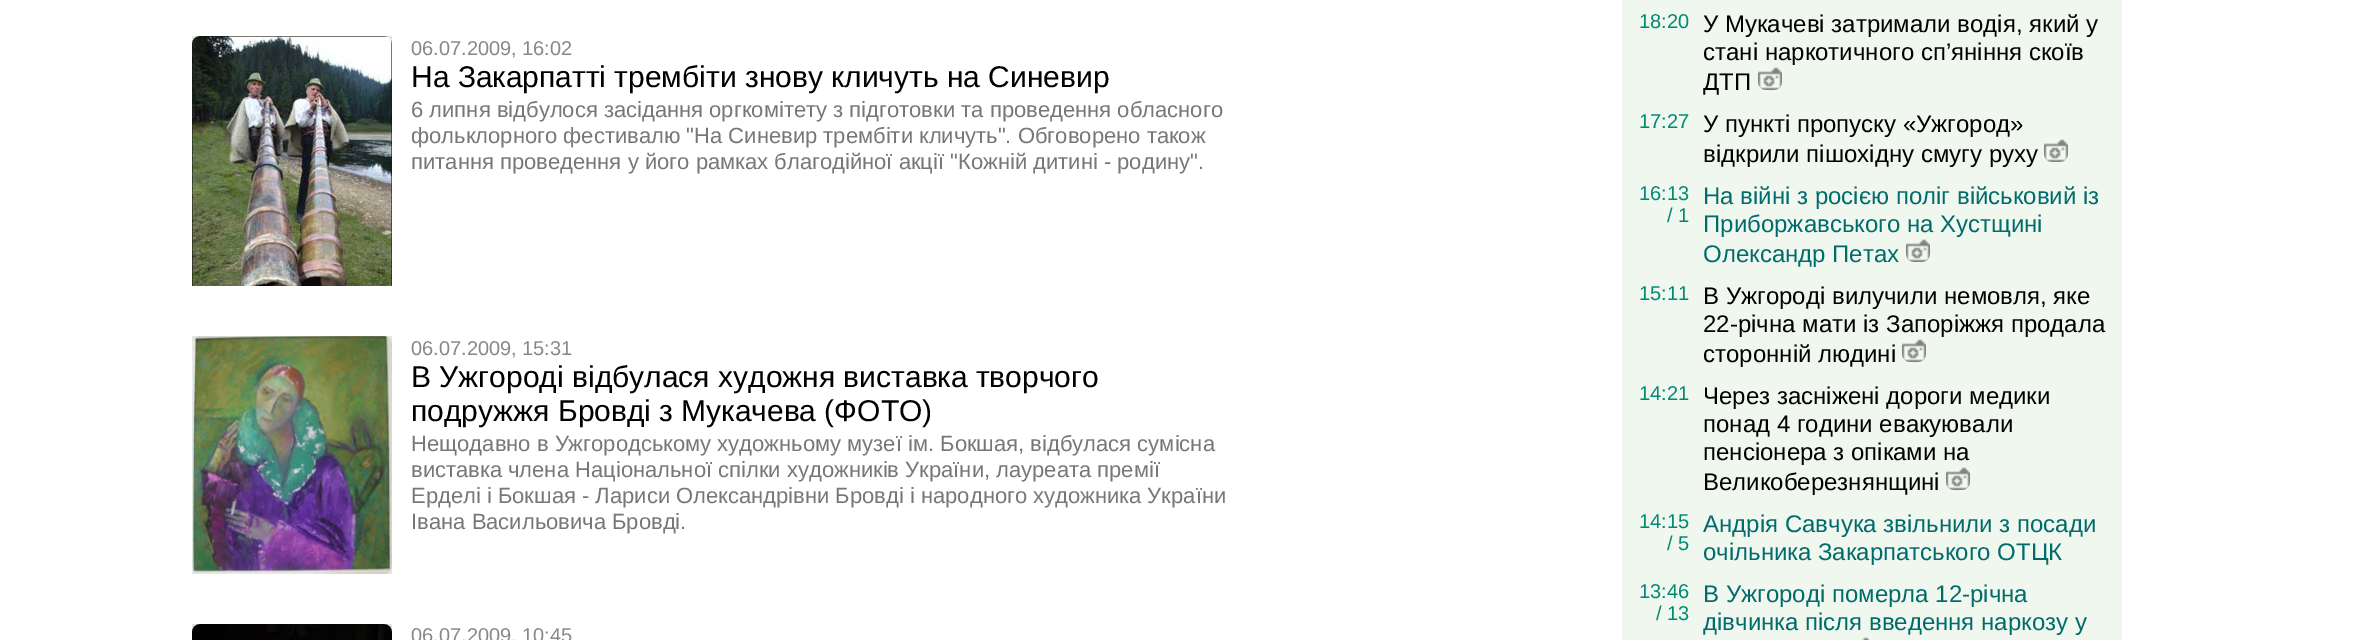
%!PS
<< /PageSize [2371 640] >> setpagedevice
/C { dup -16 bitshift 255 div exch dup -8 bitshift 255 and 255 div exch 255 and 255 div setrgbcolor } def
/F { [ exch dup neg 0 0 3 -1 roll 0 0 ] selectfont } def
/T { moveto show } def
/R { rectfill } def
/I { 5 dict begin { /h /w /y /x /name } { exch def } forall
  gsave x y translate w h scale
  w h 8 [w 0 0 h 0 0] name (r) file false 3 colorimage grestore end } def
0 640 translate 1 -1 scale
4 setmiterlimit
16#FFFFFF C
0 0 2371 640 R
16#E5E5E5 C
192 36 200 8 R
(1.rgb) 192 36 200 250 I
/LiberationSans-Regular 20 F
16#888888 C
(06.07.2009, 16:02) 411 55 T
/LiberationSans-Regular 30 F
16#000000 C
(На Закарпатті трембіти знову кличуть на Синевир) 411 87 T
/LiberationSans-Regular 22 F
16#777777 C
(6 липня відбулося засідання оргкомітету з підготовки та проведення обласного) 411 117 T
(фольклорного фестивалю "На Синевир трембіти кличуть". Обговорено також) 411 143 T
(питання проведення у його рамках благодійної акції "Кожній дитині - родину".) 411 169 T
16#E5E5E5 C
192 336 200 238 R
(2.rgb) 192 336 200 238 I
/LiberationSans-Regular 20 F
16#888888 C
(06.07.2009, 15:31) 411 355 T
/LiberationSans-Regular 30 F
16#000000 C
(В Ужгороді відбулася художня виставка творчого) 411 387 T
(подружжя Бровді з Мукачева \(ФОТО\)) 411 421 T
/LiberationSans-Regular 22 F
16#777777 C
(Нещодавно в Ужгородському художньому музеї ім. Бокшая, відбулася сумісна) 411 451 T
(виставка члена Національної спілки художників України, лауреата премії) 411 477 T
(Ерделі і Бокшая - Лариси Олександрівни Бровді і народного художника України) 411 503 T
(Івана Васильовича Бровді.) 411 529 T
16#E5E5E5 C
192 624 200 8 R
(3.rgb) 192 624 200 16 I
/LiberationSans-Regular 20 F
16#888888 C
(06.07.2009, 10:45) 411 642 T
16#F0F7EE C
1622 0 500 640 R
16#008973 C
(18:20) 1639 28 T
/LiberationSans-Regular 24 F
16#000000 C
(У Мукачеві затримали водія, який у) 1703 32 T
(стані наркотичного сп’яніння скоїв) 1703 60 T
(ДТП) 1703 90 T
(4.rgb) 1758 67 24 23 I
/LiberationSans-Regular 20 F
16#008973 C
(17:27) 1639 128 T
/LiberationSans-Regular 24 F
16#000000 C
(У пункті пропуску «Ужгород») 1703 132 T
(відкрили пішохідну смугу руху) 1703 162 T
(5.rgb) 2044 139 24 23 I
/LiberationSans-Regular 20 F
16#008973 C
(16:13) 1639 200 T
(/ 1) 1667 222 T
/LiberationSans-Regular 24 F
16#006B6B C
(На війні з росією поліг військовий із) 1703 204 T
(Приборжавського на Хустщині) 1703 232 T
(Олександр Петах) 1703 262 T
(5.rgb) 1906 239 24 23 I
/LiberationSans-Regular 20 F
16#008973 C
(15:11) 1639 300 T
/LiberationSans-Regular 24 F
16#000000 C
(В Ужгороді вилучили немовля, яке) 1703 304 T
(22-річна мати із Запоріжжя продала) 1703 332 T
(сторонній людині) 1703 362 T
(5.rgb) 1902 339 24 23 I
/LiberationSans-Regular 20 F
16#008973 C
(14:21) 1639 400 T
/LiberationSans-Regular 24 F
16#000000 C
(Через засніжені дороги медики) 1703 404 T
(понад 4 години евакуювали) 1703 432 T
(пенсіонера з опіками на) 1703 460 T
(Великоберезнянщині) 1703 490 T
(5.rgb) 1946 467 24 23 I
/LiberationSans-Regular 20 F
16#008973 C
(14:15) 1639 528 T
(/ 5) 1667 550 T
/LiberationSans-Regular 24 F
16#006B6B C
(Андрія Савчука звільнили з посади) 1703 532 T
(очільника Закарпатського ОТЦК) 1703 560 T
/LiberationSans-Regular 20 F
16#008973 C
(13:46) 1639 598 T
(/ 13) 1656 620 T
/LiberationSans-Regular 24 F
16#006B6B C
(В Ужгороді померла 12-річна) 1703 602 T
(дівчинка після введення наркозу у) 1703 630 T
(6.rgb) 1861 637 9 3 I
showpage
